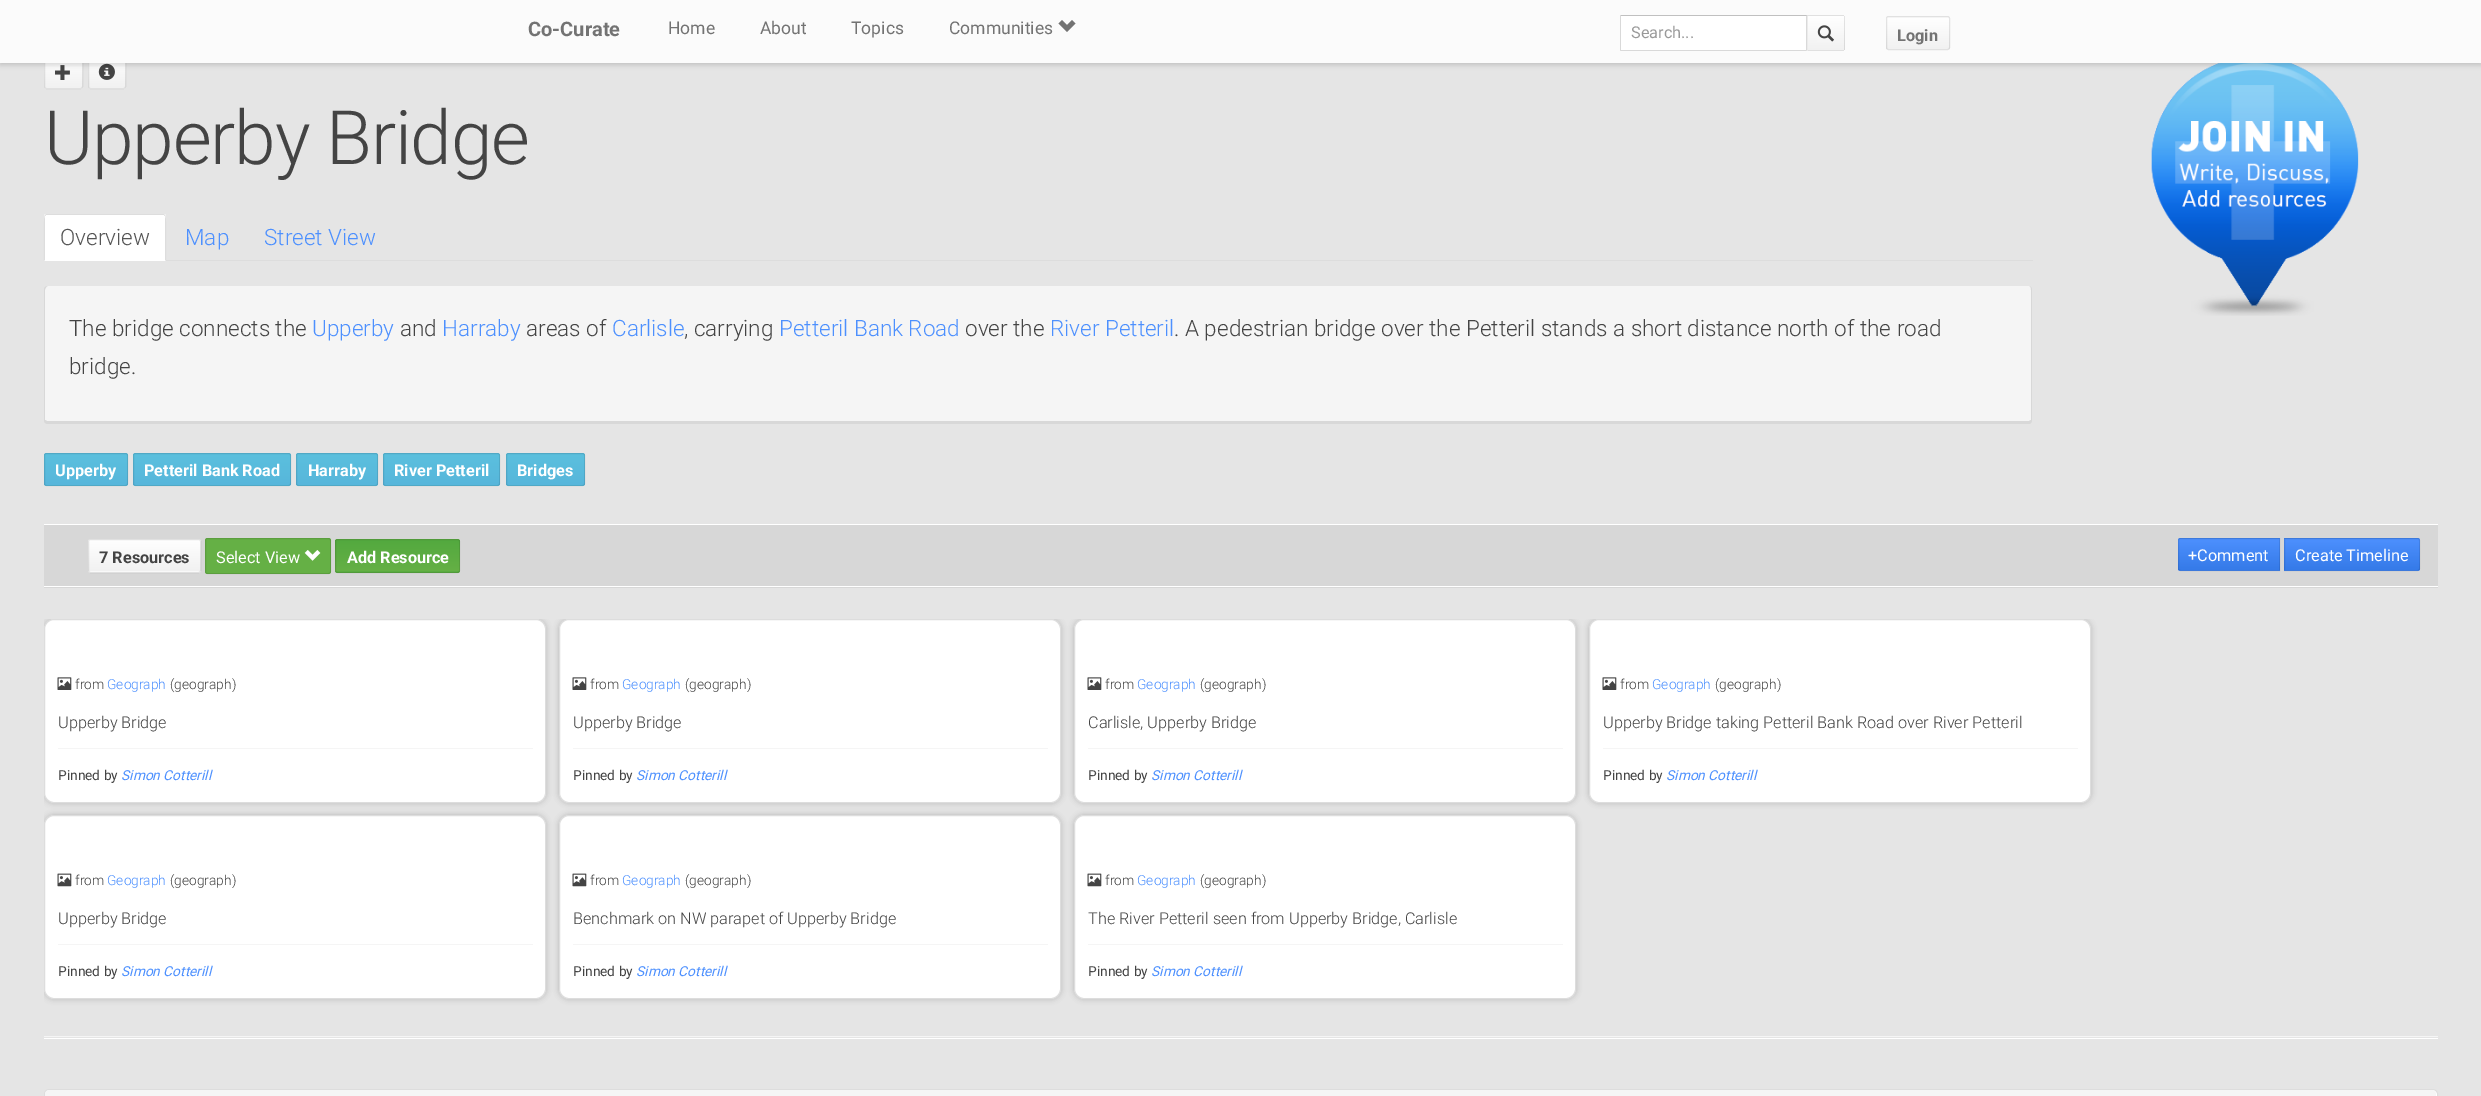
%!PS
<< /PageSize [2481 1096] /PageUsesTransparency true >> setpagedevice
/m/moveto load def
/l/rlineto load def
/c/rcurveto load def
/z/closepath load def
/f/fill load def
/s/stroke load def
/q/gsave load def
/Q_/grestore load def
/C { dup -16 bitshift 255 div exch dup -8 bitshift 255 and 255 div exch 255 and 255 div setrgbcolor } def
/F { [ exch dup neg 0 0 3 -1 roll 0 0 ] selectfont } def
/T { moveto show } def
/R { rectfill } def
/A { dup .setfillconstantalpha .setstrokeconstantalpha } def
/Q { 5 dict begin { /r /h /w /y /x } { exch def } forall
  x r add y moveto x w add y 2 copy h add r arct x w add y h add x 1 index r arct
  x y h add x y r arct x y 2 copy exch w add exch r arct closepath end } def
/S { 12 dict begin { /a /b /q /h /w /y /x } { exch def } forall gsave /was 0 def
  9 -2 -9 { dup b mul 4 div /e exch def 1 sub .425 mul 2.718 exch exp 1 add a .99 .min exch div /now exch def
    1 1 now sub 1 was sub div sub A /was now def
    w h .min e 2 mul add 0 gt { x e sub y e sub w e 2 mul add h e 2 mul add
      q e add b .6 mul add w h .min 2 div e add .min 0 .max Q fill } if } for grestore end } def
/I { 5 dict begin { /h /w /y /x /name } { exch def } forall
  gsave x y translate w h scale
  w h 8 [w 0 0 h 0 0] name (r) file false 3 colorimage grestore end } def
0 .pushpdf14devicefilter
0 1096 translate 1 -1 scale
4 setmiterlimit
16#E5E5E5 C
0 0 2481 1096 R
16#F9F9F9 C
44 55 39 34 2.5 Q f
q 44 63 m 39 0 l 0 25 l -39 0 l z clip newpath
<< /ShadingType 2 /ColorSpace /DeviceRGB /Coords [63 56 63 88] /Extend [true true] /Function << /FunctionType 2 /Domain [0 1] /C0 [1 1 1] /C1 [.945 .945 .945] /N 1 >> >> shfill Q_
0.1 A
16#000000 C
44.5 55.5 38 33 2 Q s
1 A
(2.rgb) 55 65 15 15 I
16#F9F9F9 C
88 55 38 34 2.5 Q f
q 88 63 m 38 0 l 0 25 l -38 0 l z clip newpath
<< /ShadingType 2 /ColorSpace /DeviceRGB /Coords [107 56 107 88] /Extend [true true] /Function << /FunctionType 2 /Domain [0 1] /C0 [1 1 1] /C1 [.945 .945 .945] /N 1 >> >> shfill Q_
0.1 A
16#000000 C
88.5 55.5 37 33 2 Q s
1 A
(3.rgb) 98 63 17 17 I
(4.rgb) 2151 63 208 253 I
0 3 2481 62 0 2.5 .15 S
16#FBFBFB C
0 0 2481 63 R
/Roboto-Bold 20 F
16#737373 C
(Co-Curate) 528 36 T
/Roboto-Regular 17.5 F
(Home) 668 34 T
(About) 760 34 T
(Topics) 851 34 T
(Communities) 949 34 T
1058.5 23.5 m 8.5 8.5 l 8.5 -8.5 l -3.5 -3.5 l -5 5 l -5 -5 l z f
16#FFFFFF C
1621 15 m 187 0 l 0 36 l -187 0 l -.5 0 -1 -.5 -1 -1 c 0 -34 l 0 -.5 .5 -1 1 -1 c z f
16#C0C0C0 C
1621 15 m -1 1 l 1 0 l 185 0 l 2 -1 l z f
16#D9D9D9 C
1807.5 15 m 0 36 l -1.5 -1 l 0 -33.5 l z f
1807 51 m -187 0 l 1 -1 l 185 0 l z f
1621 16 m -.5 -.5 l -.5 .5 l 0 34 l .5 1 l .5 -1 l z f
/Roboto-Regular 16.25 F
16#999999 C
(Search...) 1631 38 T
q 1808 16 m 37 0 l 0 34 l -37 0 l z clip newpath
<< /ShadingType 2 /ColorSpace /DeviceRGB /Coords [1826 16 1826 50] /Extend [true true] /Function << /FunctionType 2 /Domain [0 1] /C0 [1 1 1] /C1 [.945 .945 .945] /N 1 >> >> shfill Q_
16#E0E0E0 C
1808 15 36 1 R
0.1 A
16#000000 C
1844 16 1 34 R
1 A
16#E0E0E0 C
1808 50 36 1 R
(1.rgb) 1817 25 17 17 I
q 1886 18 m 64 0 l 0 31 l -64 0 l z clip newpath
<< /ShadingType 2 /ColorSpace /DeviceRGB /Coords [1918 17 1918 49] /Extend [true true] /Function << /FunctionType 2 /Domain [0 1] /C0 [1 1 1] /C1 [.945 .945 .945] /N 1 >> >> shfill Q_
0.1 A
16#000000 C
1886.5 16.5 63 33 2 Q s
/Roboto-Bold 16.25 F
1 A
16#737373 C
(Login) 1897 41 T
/Roboto-Light 75 F
16#444444 C
44 164 m -1.25 0 (Upperby Bridge) ashow
16#DDDDDD C
166 260 1867 1 R
16#FFFFFF C
46.5 214 m 117 0 l 1.5 0 2.5 1 2.5 2.5 c 0 44.5 l -122 0 l 0 -44.5 l 0 -1.5 1 -2.5 2.5 -2.5 c z f
16#DDDDDD C
46 214 m -1 1 l 1 1 l 0 -1 l 118 0 l 0 1 l 1 -1 l -1 -1 l z f
166 261 m 0 -5 1 -45 -1 -46 c -1 1 l 1 0 l 0 44 l z f
45 215 m -2 1 -1 41 -1 46 c 1 -1 l 0 -44 l 1 0 l z f
/Roboto-Light 22.5 F
16#555555 C
(Overview) 60 245 T
16#4D90FE C
(Map) 185 245 T
(Street View) 264 245 T
16#F5F5F5 C
48 286 m 1981 0 l 2 0 2 3 2 4 c 0 130 l -2 1 l -1982 0 l -2 -1 l 0 -130 l 0 -1 1 -4 3 -4 c z f
16#D8D8D8 C
48 286 m 1981 0 l 2 0 3 2 3 4 c 0 130 l 0 2 -1 4 -3 4 c -1981 0 l -3 0 -4 -2 -4 -4 c 0 -130 l 0 -2 1 -4 4 -4 c z 48 286 m 1981 0 l 2 0 2 3 2 4 c 0 130 l -2 1 l -1982 0 l -2 -1 l 0 -130 l 0 -1 1 -4 3 -4 c z eofill
16#444444 C
(The bridge connects the) 69 336 T
16#4D90FE C
(Upperby) 312 336 T
16#444444 C
(and) 400 336 T
16#4D90FE C
(Harraby) 442 336 T
16#444444 C
(areas of) 526 336 T
16#4D90FE C
(Carlisle) 612 336 T
16#444444 C
(, carrying) 684 336 T
16#4D90FE C
(Petteril Bank Road) 779 336 T
16#444444 C
(over the) 965 336 T
16#4D90FE C
(River Petteril) 1050 336 T
16#444444 C
(. A pedestrian bridge over the Petteril stands a short distance north of the road) 1174 336 T
(bridge.) 69 374 T
16#59BCDD C
44 453 84 33 2.5 Q f
q
44 453 84 33 2.5 Q clip newpath
q 44 454 m 84 0 l 0 31 l -84 0 l z clip newpath
<< /ShadingType 2 /ColorSpace /DeviceRGB /Coords [86 454 86 485] /Extend [true true] /Function << /FunctionType 2 /Domain [0 1] /C0 [.357 .753 .871] /C1 [.341 .714 .859] /N 1 >> >> shfill Q_
Q_
0.1 A
16#000000 C
44.5 453.5 83 32 2 Q s
/Roboto-Bold 16.25 F
1 A
16#FFFFFF C
(Upperby) 55 476 T
16#59BCDD C
133 453 158 33 2.5 Q f
q
133 453 158 33 2.5 Q clip newpath
q 133 454 m 158 0 l 0 31 l -158 0 l z clip newpath
<< /ShadingType 2 /ColorSpace /DeviceRGB /Coords [212 454 212 485] /Extend [true true] /Function << /FunctionType 2 /Domain [0 1] /C0 [.357 .753 .871] /C1 [.341 .714 .859] /N 1 >> >> shfill Q_
Q_
0.1 A
16#000000 C
133.5 453.5 157 32 2 Q s
1 A
16#FFFFFF C
(Petteril Bank Road) 144 476 T
16#59BCDD C
296 453 82 33 2.5 Q f
q
296 453 82 33 2.5 Q clip newpath
q 296 454 m 82 0 l 0 31 l -82 0 l z clip newpath
<< /ShadingType 2 /ColorSpace /DeviceRGB /Coords [337 454 337 485] /Extend [true true] /Function << /FunctionType 2 /Domain [0 1] /C0 [.357 .753 .871] /C1 [.341 .714 .859] /N 1 >> >> shfill Q_
Q_
0.1 A
16#000000 C
296.5 453.5 81 32 2 Q s
1 A
16#FFFFFF C
(Harraby) 308 476 T
16#59BCDD C
383 453 117 33 2.5 Q f
q
383 453 117 33 2.5 Q clip newpath
q 383 454 m 117 0 l 0 31 l -117 0 l z clip newpath
<< /ShadingType 2 /ColorSpace /DeviceRGB /Coords [441 454 441 485] /Extend [true true] /Function << /FunctionType 2 /Domain [0 1] /C0 [.357 .753 .871] /C1 [.341 .714 .859] /N 1 >> >> shfill Q_
Q_
0.1 A
16#000000 C
383.5 453.5 116 32 2 Q s
1 A
16#FFFFFF C
(River Petteril) 394 476 T
16#59BCDD C
506 453 79 33 2.5 Q f
q
506 453 79 33 2.5 Q clip newpath
q 506 454 m 79 0 l 0 31 l -79 0 l z clip newpath
<< /ShadingType 2 /ColorSpace /DeviceRGB /Coords [546 454 546 485] /Extend [true true] /Function << /FunctionType 2 /Domain [0 1] /C0 [.357 .753 .871] /C1 [.341 .714 .859] /N 1 >> >> shfill Q_
Q_
0.1 A
16#000000 C
506.5 453.5 78 32 2 Q s
1 A
16#FFFFFF C
(Bridges) 517 476 T
16#D7D7D7 C
44 525 2394 63 R
16#FFFFFF C
44 524 2394 1 R
44 586 2394 1 R
16#F9F9F9 C
88 539 113 34 2.5 Q f
q 88 540 m 113 0 l 0 31 l -113 0 l z clip newpath
<< /ShadingType 2 /ColorSpace /DeviceRGB /Coords [144 540 144 571] /Extend [true true] /Function << /FunctionType 2 /Domain [0 1] /C0 [1 1 1] /C1 [.945 .945 .945] /N 1 >> >> shfill Q_
0.1 A
16#000000 C
88.5 539.5 112 33 2 Q s
1 A
16#444444 C
(7 Resources) 99 563 T
16#65B045 C
205 538 126 36 2.5 Q f
0.1 A
16#000000 C
205.5 538.5 125 35 2 Q s
/Roboto-Regular 16.25 F
1 A
16#FFFFFF C
(Select View) 216 563 T
(5.rgb) 304 550 17 11 I
16#5AAC41 C
335 539 125 34 2.5 Q f
q 335 540 m 125 0 l 0 31 l -125 0 l z clip newpath
<< /ShadingType 2 /ColorSpace /DeviceRGB /Coords [398 540 398 571] /Extend [true true] /Function << /FunctionType 2 /Domain [0 1] /C0 [.325 .663 .247] /C1 [.396 .69 .271] /N 1 >> >> shfill Q_
0.1 A
16#000000 C
335.5 539.5 124 33 2 Q s
/Roboto-Bold 16.25 F
1 A
16#FFFFFF C
(Add Resource) 347 563 T
16#4387F5 C
2180.5 538 m 99.5 0 l 0 33 l -99.5 0 l -1.5 0 -2.5 -1 -2.5 -2.5 c 0 -28 l 0 -1.5 1 -2.5 2.5 -2.5 c z f
q 2178 539 m 102 0 l 0 31 l -102 0 l z clip newpath
<< /ShadingType 2 /ColorSpace /DeviceRGB /Coords [2229 539 2229 570] /Extend [true true] /Function << /FunctionType 2 /Domain [0 1] /C0 [.302 .565 .996] /C1 [.208 .478 .91] /N 1 >> >> shfill Q_
0.1 A
16#000000 C
2180.5 538.5 m 99 0 l 0 32 l -99 0 l -1 0 -2 -1 -2 -2 c 0 -28 l 0 -1 1 -2 2 -2 c z s
/Roboto-Regular 16.25 F
1 A
16#FFFFFF C
(+Comment) 2188 561 T
16#4387F5 C
2284 538 m 133.5 0 l 1.5 0 2.5 1 2.5 2.5 c 0 28 l 0 1.5 -1 2.5 -2.5 2.5 c -133.5 0 l z f
q 2284 539 m 136 0 l 0 31 l -136 0 l z clip newpath
<< /ShadingType 2 /ColorSpace /DeviceRGB /Coords [2352 539 2352 570] /Extend [true true] /Function << /FunctionType 2 /Domain [0 1] /C0 [.302 .565 .996] /C1 [.208 .478 .91] /N 1 >> >> shfill Q_
0.1 A
16#000000 C
2284.5 538.5 m 133 0 l 1 0 2 1 2 2 c 0 28 l 0 1 -1 2 -2 2 c -133 0 l z s
1 A
16#FFFFFF C
(Create Timeline) 2295 561 T
q
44 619 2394 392 rectclip
16#000000 C
44 619 502 184 10 3 .2 S
Q_
44.5 619.5 501 183 9.5 Q q f Q_
16#DDDDDD C
s
(6.rgb) 57 677 15 13 I
/Roboto-Light 13.75 F
16#444444 C
(from) 75 689 T
16#4D90FE C
(Geograph) 107 689 T
16#444444 C
(\(geograph\)) 170 689 T
/Roboto-Light 16.25 F
(Upperby Bridge) 58 728 T
16#F5F5F5 C
58 748 475 1 R
/Roboto-Regular 13.75 F
16#444444 C
(Pinned by) 58 780 T
/Roboto-Italic 13.75 F
16#4D90FE C
(Simon Cotterill) 121 780 T
q
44 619 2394 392 rectclip
16#000000 C
559 619 502 184 10 3 .2 S
Q_
16#FFFFFF C
559.5 619.5 501 183 9.5 Q q f Q_
16#DDDDDD C
s
(6.rgb) 572 677 15 13 I
/Roboto-Light 13.75 F
16#444444 C
(from) 590 689 T
16#4D90FE C
(Geograph) 622 689 T
16#444444 C
(\(geograph\)) 685 689 T
/Roboto-Light 16.25 F
(Upperby Bridge) 573 728 T
16#F5F5F5 C
573 748 475 1 R
/Roboto-Regular 13.75 F
16#444444 C
(Pinned by) 573 780 T
/Roboto-Italic 13.75 F
16#4D90FE C
(Simon Cotterill) 636 780 T
q
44 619 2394 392 rectclip
16#000000 C
1074 619 502 184 10 3 .2 S
Q_
16#FFFFFF C
1074.5 619.5 501 183 9.5 Q q f Q_
16#DDDDDD C
s
(6.rgb) 1087 677 15 13 I
/Roboto-Light 13.75 F
16#444444 C
(from) 1105 689 T
16#4D90FE C
(Geograph) 1137 689 T
16#444444 C
(\(geograph\)) 1200 689 T
/Roboto-Light 16.25 F
(Carlisle, Upperby Bridge) 1088 728 T
16#F5F5F5 C
1088 748 475 1 R
/Roboto-Regular 13.75 F
16#444444 C
(Pinned by) 1088 780 T
/Roboto-Italic 13.75 F
16#4D90FE C
(Simon Cotterill) 1151 780 T
q
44 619 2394 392 rectclip
16#000000 C
1589 619 502 184 10 3 .2 S
Q_
16#FFFFFF C
1589.5 619.5 501 183 9.5 Q q f Q_
16#DDDDDD C
s
(6.rgb) 1602 677 15 13 I
/Roboto-Light 13.75 F
16#444444 C
(from) 1620 689 T
16#4D90FE C
(Geograph) 1652 689 T
16#444444 C
(\(geograph\)) 1715 689 T
/Roboto-Light 16.25 F
(Upperby Bridge taking Petteril Bank Road over River Petteril) 1603 728 T
16#F5F5F5 C
1603 748 475 1 R
/Roboto-Regular 13.75 F
16#444444 C
(Pinned by) 1603 780 T
/Roboto-Italic 13.75 F
16#4D90FE C
(Simon Cotterill) 1666 780 T
q
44 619 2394 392 rectclip
16#000000 C
44 815 502 184 10 3 .2 S
Q_
16#FFFFFF C
44.5 815.5 501 183 9.5 Q q f Q_
16#DDDDDD C
s
(7.rgb) 57 873 15 14 I
/Roboto-Light 13.75 F
16#444444 C
(from) 75 885 T
16#4D90FE C
(Geograph) 107 885 T
16#444444 C
(\(geograph\)) 170 885 T
/Roboto-Light 16.25 F
(Upperby Bridge) 58 924 T
16#F5F5F5 C
58 944 475 1 R
/Roboto-Regular 13.75 F
16#444444 C
(Pinned by) 58 976 T
/Roboto-Italic 13.75 F
16#4D90FE C
(Simon Cotterill) 121 976 T
16#000000 C
559 815 502 184 10 3 .2 S
16#FFFFFF C
559.5 815.5 501 183 9.5 Q q f Q_
16#DDDDDD C
s
(7.rgb) 572 873 15 14 I
/Roboto-Light 13.75 F
16#444444 C
(from) 590 885 T
16#4D90FE C
(Geograph) 622 885 T
16#444444 C
(\(geograph\)) 685 885 T
/Roboto-Light 16.25 F
(Benchmark on NW parapet of Upperby Bridge) 573 924 T
16#F5F5F5 C
573 944 475 1 R
/Roboto-Regular 13.75 F
16#444444 C
(Pinned by) 573 976 T
/Roboto-Italic 13.75 F
16#4D90FE C
(Simon Cotterill) 636 976 T
16#000000 C
1074 815 502 184 10 3 .2 S
16#FFFFFF C
1074.5 815.5 501 183 9.5 Q q f Q_
16#DDDDDD C
s
(7.rgb) 1087 873 15 14 I
/Roboto-Light 13.75 F
16#444444 C
(from) 1105 885 T
16#4D90FE C
(Geograph) 1137 885 T
16#444444 C
(\(geograph\)) 1200 885 T
/Roboto-Light 16.25 F
(The River Petteril seen from Upperby Bridge, Carlisle) 1088 924 T
16#F5F5F5 C
1088 944 475 1 R
/Roboto-Regular 13.75 F
16#444444 C
(Pinned by) 1088 976 T
/Roboto-Italic 13.75 F
16#4D90FE C
(Simon Cotterill) 1151 976 T
16#F5F5F5 C
44 1036 2394 1 R
16#FFFFFF C
44 1038 2394 1 R
44.5 1089.5 2393 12 4.5 Q q f Q_
16#DDDDDD C
s
16#F5F5F5 C
49 1090 m 2383 0 l 2 0 4 2 4 4 c 0 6 l -2391 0 l 0 -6 l 0 -2 2 -4 4 -4 c z f
.poppdf14devicefilter showpage
